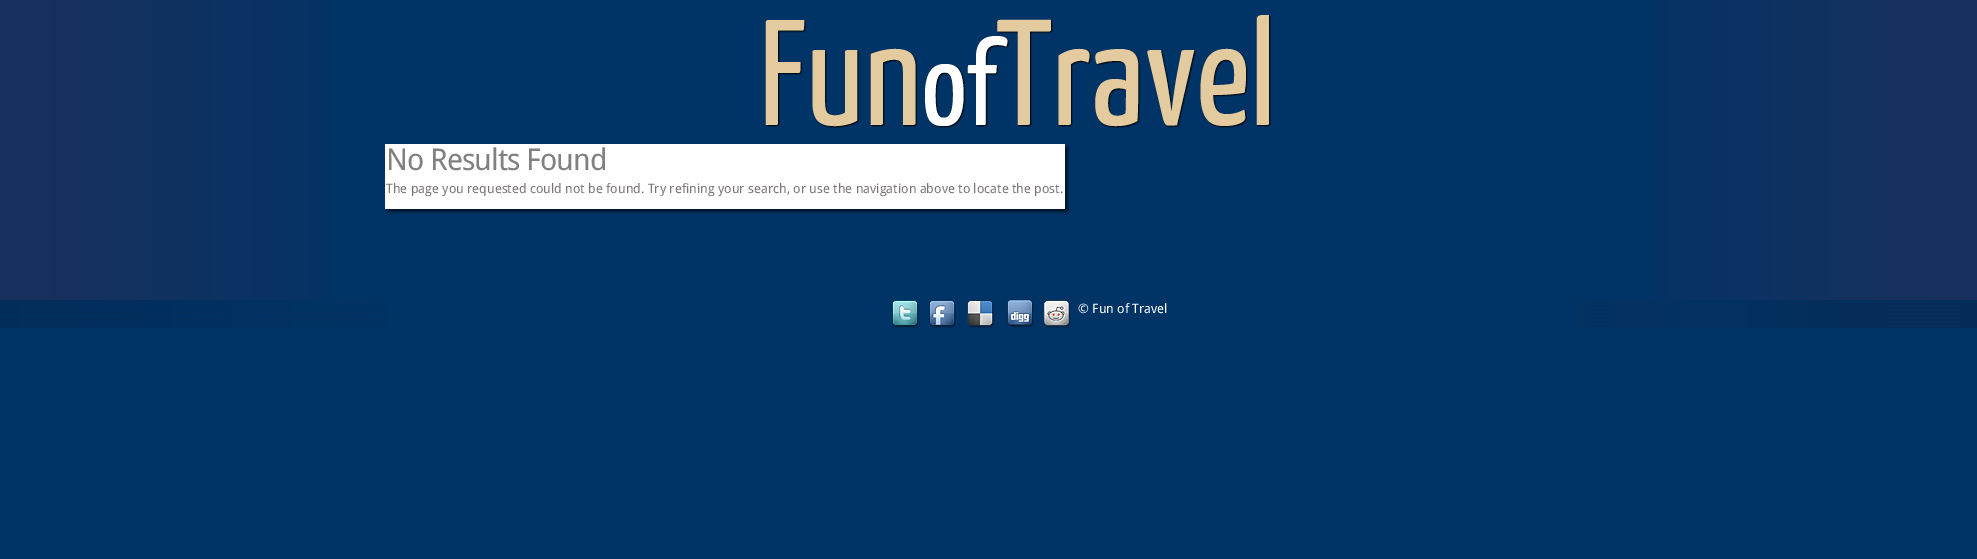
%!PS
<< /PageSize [1977 559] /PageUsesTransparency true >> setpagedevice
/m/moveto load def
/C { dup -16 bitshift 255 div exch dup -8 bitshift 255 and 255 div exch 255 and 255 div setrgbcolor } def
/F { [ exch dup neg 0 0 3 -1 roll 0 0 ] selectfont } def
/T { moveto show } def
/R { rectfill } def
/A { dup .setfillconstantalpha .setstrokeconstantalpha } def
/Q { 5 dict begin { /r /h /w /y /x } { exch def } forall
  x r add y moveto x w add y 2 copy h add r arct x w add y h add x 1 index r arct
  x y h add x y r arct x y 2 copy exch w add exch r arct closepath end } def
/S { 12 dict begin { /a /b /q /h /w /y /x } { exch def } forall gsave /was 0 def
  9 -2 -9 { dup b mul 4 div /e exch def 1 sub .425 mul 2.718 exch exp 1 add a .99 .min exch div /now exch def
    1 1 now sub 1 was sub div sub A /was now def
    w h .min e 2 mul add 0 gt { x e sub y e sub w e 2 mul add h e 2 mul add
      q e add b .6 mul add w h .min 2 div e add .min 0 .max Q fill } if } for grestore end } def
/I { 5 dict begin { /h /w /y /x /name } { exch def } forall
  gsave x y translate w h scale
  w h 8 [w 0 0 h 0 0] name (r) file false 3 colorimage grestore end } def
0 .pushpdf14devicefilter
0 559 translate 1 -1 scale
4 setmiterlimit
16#003366 C
0 0 1977 559 R
(1.rgb) 0 0 326 300 I
(2.rgb) 1653 0 324 300 I
(3.rgb) 765 15 506 114 I
16#000000 C
388 147 680 65 0 1.5 .6 S
16#FFFFFF C
385 144 680 65 R
/DroidSans-Regular 30 F
16#808080 C
386 170 m -1 0 (No Results Found) ashow
/DroidSans-Regular 13 F
16#7A7575 C
(The page you requested could not be found. Try refining your search, or use the navigation above to locate the post.) 386 193 T
(4.rgb) 0 300 388 28 I
(5.rgb) 1575 300 402 28 I
(6.rgb) 892 300 27 29 I
(7.rgb) 929 300 27 29 I
(8.rgb) 967 300 28 29 I
(9.rgb) 1007 300 27 28 I
(10.rgb) 1044 300 27 29 I
16#FFFFFF C
(© Fun of Travel) 1078 313 T
.poppdf14devicefilter showpage
